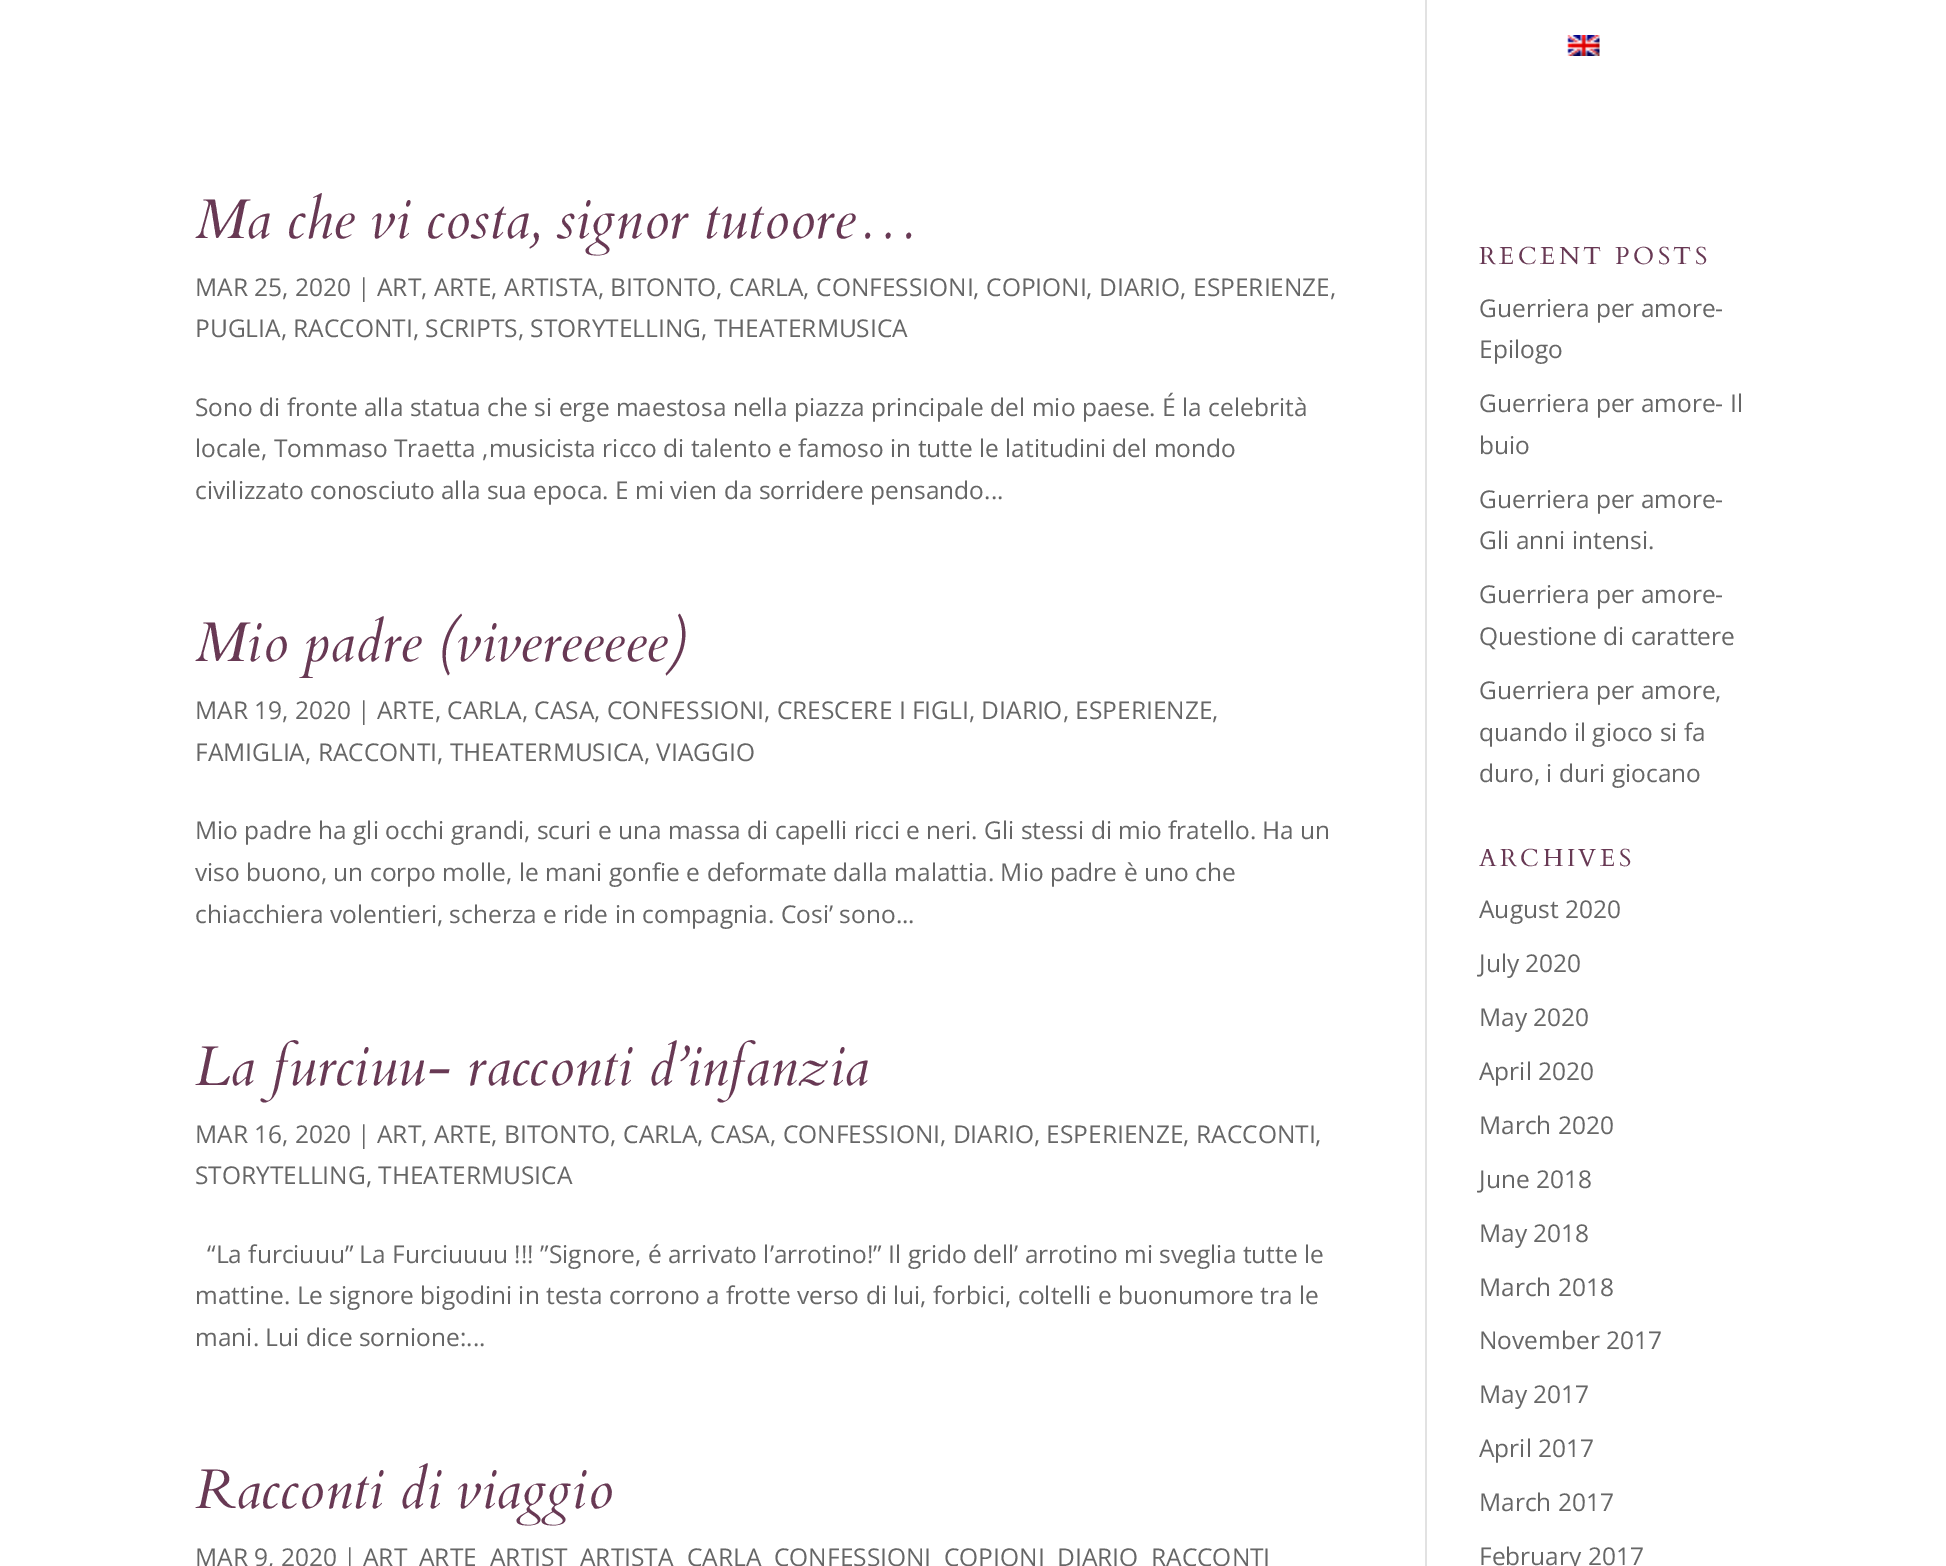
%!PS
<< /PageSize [1946 1566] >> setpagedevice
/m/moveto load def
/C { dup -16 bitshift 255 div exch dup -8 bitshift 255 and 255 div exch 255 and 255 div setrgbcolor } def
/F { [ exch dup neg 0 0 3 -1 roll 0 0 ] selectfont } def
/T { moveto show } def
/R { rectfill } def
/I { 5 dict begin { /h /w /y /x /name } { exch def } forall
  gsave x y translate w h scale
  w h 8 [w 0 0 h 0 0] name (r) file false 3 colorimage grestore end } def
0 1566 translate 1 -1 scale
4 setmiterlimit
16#FFFFFF C
0 0 1946 1566 R
(1.rgb) 1567 35 33 21 I
16#E2E2E2 C
1425 0 2 1566 R
/Cardo-Italic 56 F
16#683954 C
(Ma che vi costa, signor tutoore…) 195 238 T
/OpenSans-Regular 24.5 F
16#666666 C
(MAR 25, 2020 | ART, ARTE, ARTISTA, BITONTO, CARLA, CONFESSIONI, COPIONI, DIARIO, ESPERIENZE,) 195 296 T
(PUGLIA, RACCONTI, SCRIPTS, STORYTELLING, THEATERMUSICA) 195 337 T
(Sono di fronte alla statua che si erge maestosa nella piazza principale del mio paese. É la celebrità) 195 416 T
(locale, Tommaso Traetta ,musicista ricco di talento e famoso in tutte le latitudini del mondo) 195 457 T
(civilizzato conosciuto alla sua epoca. E mi vien da sorridere pensando...) 195 499 T
/Cardo-Italic 56 F
16#683954 C
(Mio padre \(vivereeeee\)) 195 661 T
/OpenSans-Regular 24.5 F
16#666666 C
(MAR 19, 2020 | ARTE, CARLA, CASA, CONFESSIONI, CRESCERE I FIGLI, DIARIO, ESPERIENZE,) 195 719 T
(FAMIGLIA, RACCONTI, THEATERMUSICA, VIAGGIO) 195 761 T
(Mio padre ha gli occhi grandi, scuri e una massa di capelli ricci e neri. Gli stessi di mio fratello. Ha un) 195 839 T
(viso buono, un corpo molle, le mani gonfie e deformate dalla malattia. Mio padre è uno che) 195 881 T
(chiacchiera volentieri, scherza e ride in compagnia. Cosi’ sono...) 195 923 T
/Cardo-Italic 56 F
16#683954 C
(La furciuu- racconti d’infanzia) 195 1085 T
/OpenSans-Regular 24.5 F
16#666666 C
(MAR 16, 2020 | ART, ARTE, BITONTO, CARLA, CASA, CONFESSIONI, DIARIO, ESPERIENZE, RACCONTI,) 195 1143 T
(STORYTELLING, THEATERMUSICA) 195 1184 T
(“La furciuuu” La Furciuuuu !!! ”Signore, é arrivato l’arrotino!” Il grido dell’ arrotino mi sveglia tutte le) 207 1263 T
(mattine. Le signore bigodini in testa corrono a frotte verso di lui, forbici, coltelli e buonumore tra le) 195 1304 T
(mani. Lui dice sornione:...) 195 1346 T
/Cardo-Italic 56 F
16#683954 C
(Racconti di viaggio) 195 1508 T
/OpenSans-Regular 24.5 F
16#666666 C
(MAR 9, 2020 | ART) 195 1566 T
(ARTE) 419 1566 T
(ARTIST) 490 1566 T
(ARTISTA) 580 1566 T
(CARLA) 687 1566 T
(CONFESSIONI) 774 1566 T
(COPIONI) 944 1566 T
(DIARIO) 1057 1566 T
(RACCONTI) 1151 1566 T
/Cardo-Regular 24.5 F
16#683954 C
1479 264 m 3.5 0 (RECENT POSTS) ashow
/OpenSans-Regular 24.5 F
16#666666 C
(Guerriera per amore-) 1479 317 T
(Epilogo) 1479 358 T
(Guerriera per amore- Il) 1479 412 T
(buio) 1479 454 T
(Guerriera per amore-) 1479 508 T
(Gli anni intensi.) 1479 549 T
(Guerriera per amore-) 1479 603 T
(Questione di carattere) 1479 645 T
(Guerriera per amore,) 1479 699 T
(quando il gioco si fa) 1479 741 T
(duro, i duri giocano) 1479 782 T
/Cardo-Regular 24.5 F
16#683954 C
1479 866 m 3.5 0 (ARCHIVES) ashow
/OpenSans-Regular 24.5 F
16#666666 C
(August 2020) 1479 918 T
(July 2020) 1479 972 T
(May 2020) 1479 1026 T
(April 2020) 1479 1080 T
(March 2020) 1479 1134 T
(June 2018) 1479 1188 T
(May 2018) 1479 1242 T
(March 2018) 1479 1296 T
(November 2017) 1479 1349 T
(May 2017) 1479 1403 T
(April 2017) 1479 1457 T
(March 2017) 1479 1511 T
(February 2017) 1479 1565 T
showpage
